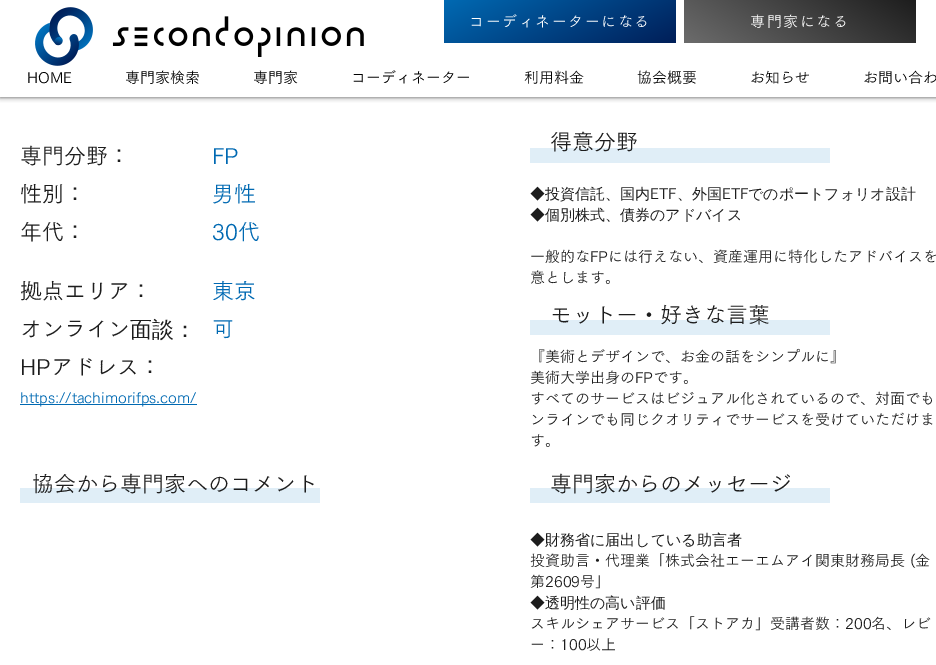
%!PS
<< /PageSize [936 665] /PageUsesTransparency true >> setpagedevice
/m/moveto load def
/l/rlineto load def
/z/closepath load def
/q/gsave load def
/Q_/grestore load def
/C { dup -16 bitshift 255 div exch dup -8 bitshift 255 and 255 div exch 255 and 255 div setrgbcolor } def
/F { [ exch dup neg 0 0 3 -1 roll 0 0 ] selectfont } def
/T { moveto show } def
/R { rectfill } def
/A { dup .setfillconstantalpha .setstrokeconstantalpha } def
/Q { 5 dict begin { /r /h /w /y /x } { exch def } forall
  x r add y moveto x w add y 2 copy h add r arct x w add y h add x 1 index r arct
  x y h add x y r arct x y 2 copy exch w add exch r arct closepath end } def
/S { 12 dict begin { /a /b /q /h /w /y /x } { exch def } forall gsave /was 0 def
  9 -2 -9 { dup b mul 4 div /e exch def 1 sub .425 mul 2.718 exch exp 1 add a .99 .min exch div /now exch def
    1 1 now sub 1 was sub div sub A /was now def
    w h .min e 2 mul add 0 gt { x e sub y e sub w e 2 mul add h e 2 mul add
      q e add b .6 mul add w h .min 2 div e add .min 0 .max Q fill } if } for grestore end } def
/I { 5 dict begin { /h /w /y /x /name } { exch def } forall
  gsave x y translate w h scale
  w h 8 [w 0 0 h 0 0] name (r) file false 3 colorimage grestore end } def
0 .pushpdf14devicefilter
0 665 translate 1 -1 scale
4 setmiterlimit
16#FFFFFF C
0 0 936 665 R
16#000000 C
0 0 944 97 0 2.5 .7 S
16#FFFFFF C
0 0 936 97 R
(1.rgb) 35 7 58 59 I
(2.rgb) 112 16 252 41 I
q 444 0 m 232 0 l 0 43 l -232 0 l z clip newpath
<< /ShadingType 2 /ColorSpace /DeviceRGB /Coords [593 85 527 -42] /Extend [true true] /Function << /FunctionType 2 /Domain [0 1] /C0 [0 .122 .349] /C1 [0 .412 .698] /N 1 >> >> shfill Q_
/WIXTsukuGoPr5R-Regular 15 F
469 27 m 1.5 0 (コーディネーターになる) ashow
q 684 0 m 232 0 l 0 43 l -232 0 l z clip newpath
<< /ShadingType 2 /ColorSpace /DeviceRGB /Coords [756 90 844 -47] /Extend [true true] /Function << /FunctionType 2 /Domain [0 1] /C0 [.424 .424 .424] /C1 [.114 .114 .114] /N 1 >> >> shfill Q_
750 27 m 1.5 0 (専門家になる) ashow
16#000000 C
(HOME) 27 83 T
(専門家検索) 125 83 T
(専門家) 253 83 T
(コーディネーター) 351 83 T
(利用料金) 524 83 T
(協会概要) 637 83 T
(お知らせ) 750 83 T
(お問い合わ) 863 83 T
16#E0EEF7 C
530 148 300 15 R
/WIXTsukuGoPr5R-Regular 22 F
16#1D1D1D C
(得意分野) 550 150 T
(専門分野：) 20 164 T
16#0069B2 C
(FP) 212 164 T
16#1D1D1D C
(性別：) 20 202 T
16#0069B2 C
(男性) 212 202 T
/WenQuanYiZenHei-Medium 15 F
16#1D1D1D C
(◆投資信託、国内) 530 199 T
/WIXTsukuGoPr5R-Regular 15 F
(ETF) 650 199 T
/WenQuanYiZenHei-Medium 15 F
(、外国) 677 199 T
/WIXTsukuGoPr5R-Regular 15 F
(ETF) 722 199 T
/WenQuanYiZenHei-Medium 15 F
(でのポートフォリオ設計) 748 199 T
(◆個別株式、債券のアドバイス) 530 220 T
/WIXTsukuGoPr5R-Regular 15 F
(一般的なFPには行えない、資産運用に特化したアドバイスを) 530 262 T
(意とします。) 530 283 T
/WIXTsukuGoPr5R-Regular 22 F
(年代：) 20 240 T
16#0069B2 C
(30代) 212 240 T
16#1D1D1D C
(拠点エリア：) 20 299 T
16#0069B2 C
(東京) 212 299 T
16#E0EEF7 C
530 320 300 15 R
16#1D1D1D C
(モットー・好きな言葉) 550 323 T
(オンライン) 20 337 T
/WenQuanYiZenHei-Medium 22 F
(⾯談：) 130 337 T
/WIXTsukuGoPr5R-Regular 22 F
16#0069B2 C
(可) 212 337 T
16#1D1D1D C
(HPアドレス：) 20 375 T
/WIXTsukuGoPr5R-Regular 15 F
(『美術とデザインで、お金の話をシンプルに』) 530 362 T
(美術大学出身のFPです。) 530 383 T
(すべてのサービスはビジュアル化されているので、対面でも) 530 404 T
(ンラインでも同じクオリティでサービスを受けていただけま) 530 425 T
(す。) 530 446 T
16#0069B2 C
20 404 177 1 R
(https://tachimorifps.com/) 20 403 T
16#E0EEF7 C
20 488 300 15 R
/WIXTsukuGoPr5R-Regular 22 F
16#1D1D1D C
(協会から専門家へのコメント) 32 492 T
16#E0EEF7 C
530 488 300 15 R
16#1D1D1D C
(専門家からのメッセージ) 550 492 T
/WenQuanYiZenHei-Medium 15 F
(◆財務省に届出している助言者) 530 545 T
/WIXTsukuGoPr5R-Regular 15 F
(投資助言・代理業「株式会社エーエムアイ関東財務局長 \(金) 530 566 T
(第2609号」) 530 587 T
/WenQuanYiZenHei-Medium 15 F
(◆透明性の高い評価) 530 608 T
/WIXTsukuGoPr5R-Regular 15 F
(スキルシェアサービス「ストアカ」受講者数：200名、レビ) 530 629 T
(ー：100以上) 530 650 T
.poppdf14devicefilter showpage
